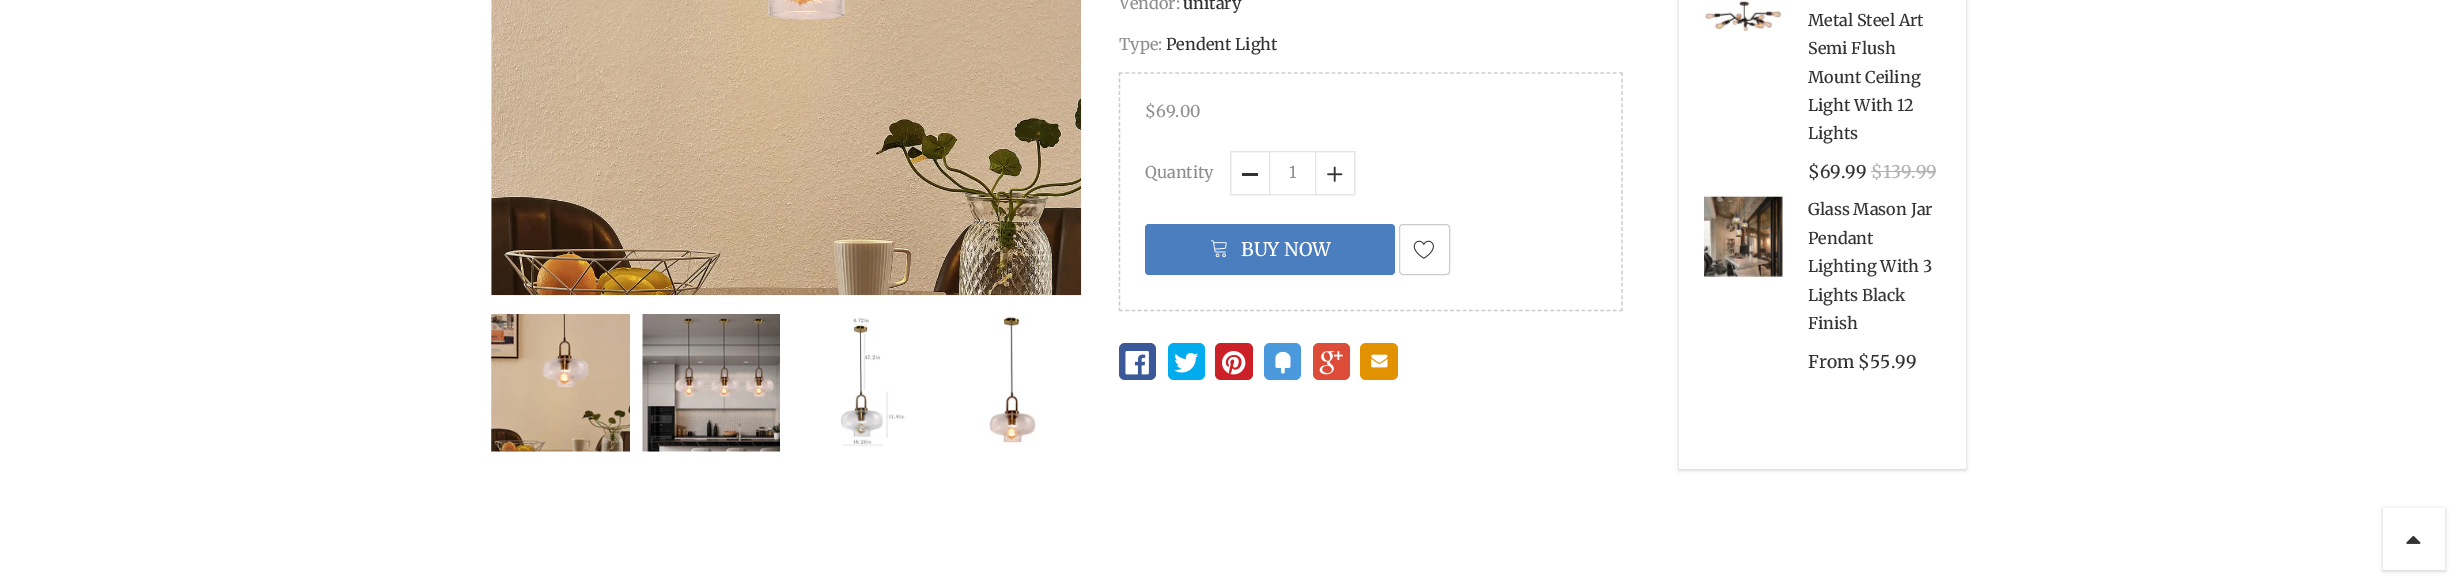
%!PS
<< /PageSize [2457 582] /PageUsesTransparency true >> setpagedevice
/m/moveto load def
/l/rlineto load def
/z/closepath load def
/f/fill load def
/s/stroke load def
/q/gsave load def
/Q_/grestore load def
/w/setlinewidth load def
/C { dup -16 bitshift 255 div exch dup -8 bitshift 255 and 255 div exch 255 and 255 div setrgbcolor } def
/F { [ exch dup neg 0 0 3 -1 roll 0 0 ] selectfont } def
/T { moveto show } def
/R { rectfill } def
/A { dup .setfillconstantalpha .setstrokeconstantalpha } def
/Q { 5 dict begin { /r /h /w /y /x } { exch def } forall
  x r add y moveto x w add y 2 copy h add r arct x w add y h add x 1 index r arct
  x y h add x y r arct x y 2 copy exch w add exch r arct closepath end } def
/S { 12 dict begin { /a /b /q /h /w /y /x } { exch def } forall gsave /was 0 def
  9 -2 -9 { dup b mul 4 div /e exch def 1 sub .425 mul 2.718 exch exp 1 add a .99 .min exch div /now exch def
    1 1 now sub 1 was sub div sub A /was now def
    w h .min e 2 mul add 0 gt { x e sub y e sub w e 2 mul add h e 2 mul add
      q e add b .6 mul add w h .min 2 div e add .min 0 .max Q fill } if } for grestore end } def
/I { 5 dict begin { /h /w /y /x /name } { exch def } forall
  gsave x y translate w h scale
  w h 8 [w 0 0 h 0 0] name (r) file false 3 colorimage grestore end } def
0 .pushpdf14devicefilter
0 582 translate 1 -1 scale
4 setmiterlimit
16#FFFFFF C
0 0 2457 582 R
(1.rgb) 491 0 591 296 I
(2.rgb) 491 314 139 138 I
(3.rgb) 642 314 138 138 I
(4.rgb) 841 318 64 128 I
(5.rgb) 989 316 47 129 I
/Merriweather-Regular 16.25 F
16#8D8D8D C
(Vendor:) 1119 9 T
/Merriweather-Medium 16.25 F
16#333333 C
(unitary) 1183 9 T
/Merriweather-Regular 16.25 F
16#8D8D8D C
(Type:) 1119 50 T
/Merriweather-Medium 16.25 F
16#333333 C
(Pendent Light) 1166 50 T
16#CCCCCC C
1.2 w
[3.75 2.5] 0 setdash
1119 73 m 503.5 0 l s
[3.75 2.44] 0 setdash
1622 72.5 m 0 238.5 l s
[3.75 2.5] 0 setdash
1119 310.5 m 503.5 0 l s
[3.75 2.44] 0 setdash
1119.5 72.5 m 0 238.5 l s
/Merriweather-Regular 16.25 F
16#8D8D8D C
($69.00) 1145 117 T
(Quantity) 1145 178 T
16#E5E5E5 C
1 w
[] 0 setdash
1230.5 151.5 124 43 rectstroke
1230.5 151.5 39 43 rectstroke
16#333333 C
1242 173 16 3 R
16#8D8D8D C
(1) 1289 178 T
16#E5E5E5 C
1315.5 151.5 39 43 rectstroke
(6.rgb) 1327 166 16 16 I
16#4B7EBF C
1145 224 250 51 4 Q f
(7.rgb) 1211 240 16 18 I
/Merriweather-Medium 18.75 F
16#FFFFFF C
(BUY NOW) 1241 256 T
16#CCCCCC C
1399.5 224.5 50 50 3.5 Q s
(8.rgb) 1413 240 21 19 I
16#3B5998 C
1119 343 37 37 6 Q f
(9.rgb) 1125 351 24 24 I
16#00ACED C
1168 343 37 37 6 Q f
(10.rgb) 1174 352 24 21 I
16#CB2027 C
1215 343 38 37 6 Q f
(11.rgb) 1222 351 24 24 I
16#4999DC C
1264 343 37 37 6 Q f
(12.rgb) 1275 351 16 23 I
16#DD4B39 C
1313 343 37 37 6 Q f
(13.rgb) 1319 351 24 24 I
16#E29200 C
1360 343 38 37 6 Q f
(14.rgb) 1371 354 17 14 I
16#000000 C
1679 -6 287 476 0 2 .2 S
16#FFFFFF C
1679 0 287 469 R
(15.rgb) 1704 1 78 31 I
/Merriweather-Medium 16.25 F
16#333333 C
(Metal Steel Art) 1808 26 T
(Semi Flush) 1808 54 T
(Mount Ceiling) 1808 83 T
(Light With 12) 1808 111 T
(Lights) 1808 139 T
/Merriweather-Medium 17.5 F
($69.99) 1808 178 T
16#B1B1B1 C
($139.99) 1871 178 T
1871 171 65 1 R
(16.rgb) 1704 196 79 81 I
/Merriweather-Medium 16.25 F
16#333333 C
(Glass Mason Jar) 1808 215 T
(Pendant) 1808 244 T
(Lighting With 3) 1808 272 T
(Lights Black) 1808 301 T
(Finish) 1808 329 T
/Merriweather-Medium 17.5 F
(From $55.99) 1808 368 T
q
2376 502 m 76 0 l 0 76 l -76 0 l z 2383 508 m 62 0 l 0 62 l -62 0 l z eoclip newpath
16#000000 C
2383 509 62 62 0 2 .2 S
Q_
(17.rgb) 2406 535 15 9 I
.poppdf14devicefilter showpage
